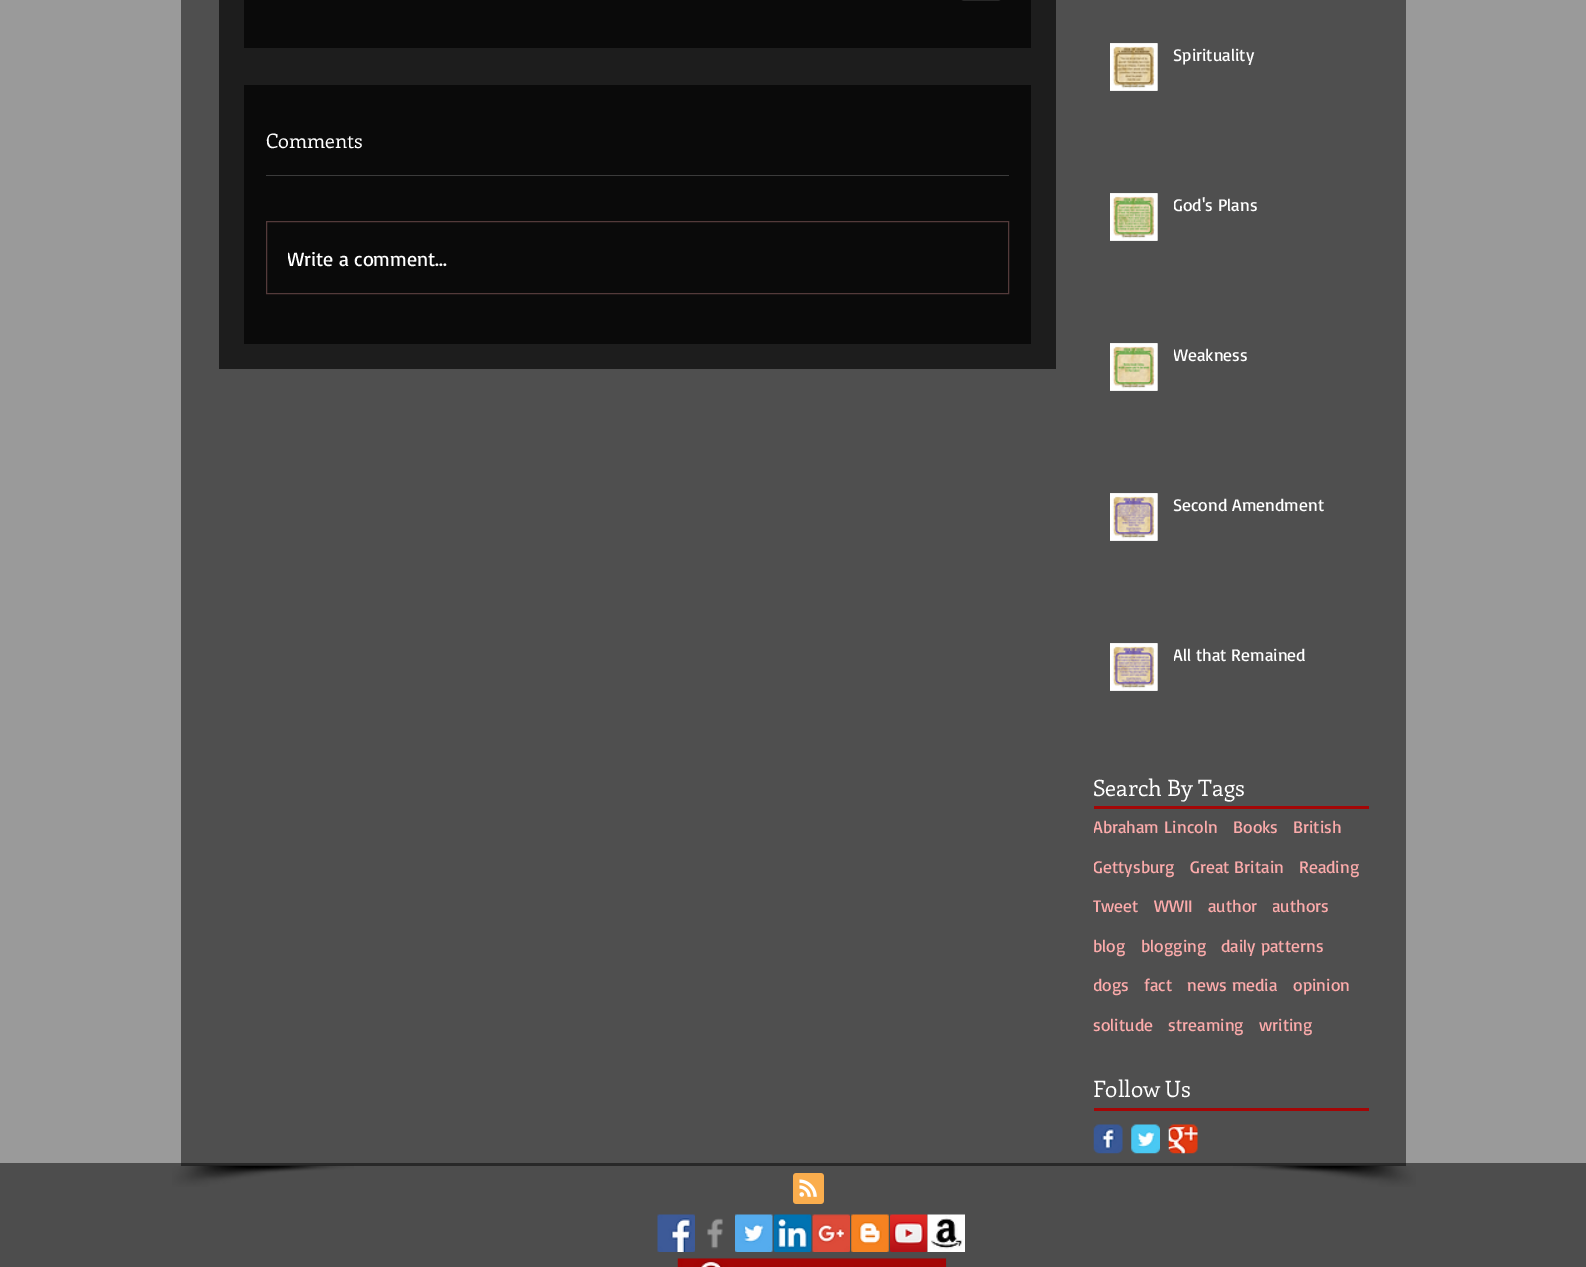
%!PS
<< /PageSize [1586 1267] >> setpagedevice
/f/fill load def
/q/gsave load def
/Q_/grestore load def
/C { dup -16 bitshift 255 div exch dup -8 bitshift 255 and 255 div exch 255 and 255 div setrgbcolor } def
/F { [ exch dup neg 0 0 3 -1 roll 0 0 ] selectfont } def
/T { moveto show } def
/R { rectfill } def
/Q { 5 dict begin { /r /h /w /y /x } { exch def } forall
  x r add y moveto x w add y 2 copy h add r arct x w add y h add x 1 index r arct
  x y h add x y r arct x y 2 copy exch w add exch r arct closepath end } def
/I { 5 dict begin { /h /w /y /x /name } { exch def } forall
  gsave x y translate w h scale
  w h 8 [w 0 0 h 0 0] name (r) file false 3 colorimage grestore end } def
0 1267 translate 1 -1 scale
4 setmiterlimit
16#9A9A9A C
0 0 1586 1267 R
16#4F4F4F C
181 0 1225 1163 R
16#4D4D4D C
0 1163 1586 104 R
16#282828 C
181 1163 1225 3 R
(1.rgb) 172 1165 182 22 I
(2.rgb) 1233 1165 183 22 I
16#1D1D1D C
219 0 837 369 R
16#0A0A0A C
244 0 787 48 R
16#272727 C
959 -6 44 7 6 Q f
16#0A0A0A C
244 85 787 259 R
/Enriqueta-Regular 20 F
16#FFFFFF C
(Comments) 266 148 T
16#3B3B3B C
266 175 743 1 R
16#533A3A C
266.5 221.5 742 72 rectstroke
q
288 243 700 30 rectclip
/Basic-Regular 20 F
16#FFFFFF C
(Write a comment...) 287 266 T
Q_
(3.rgb) 1110 43 48 48 I
(4.rgb) 1110 43 48 48 I
/Basic-Regular 17.5 F
16#FFFFFF C
(Spirituality) 1173 61 T
(5.rgb) 1110 193 48 48 I
(6.rgb) 1110 193 48 48 I
q
1174 193 180 23 rectclip
(God's Plans) 1173 211 T
Q_
(7.rgb) 1110 343 48 48 I
(8.rgb) 1110 343 48 48 I
q
1174 343 180 23 rectclip
(Weakness) 1173 361 T
Q_
(9.rgb) 1110 493 48 48 I
(10.rgb) 1110 493 48 48 I
(Second Amendment) 1173 511 T
(11.rgb) 1110 643 48 48 I
(12.rgb) 1110 643 48 48 I
q
1174 643 180 23 rectclip
(All that Remained) 1173 661 T
Q_
/Enriqueta-Regular 22.5 F
(Search By Tags) 1093 796 T
16#A40606 C
1094 806 275 3 R
q
1094 815 124 24 rectclip
/Basic-Regular 17.5 F
16#FCABAB C
(Abraham Lincoln) 1093 833 T
Q_
/Basic-Regular 17.5 F
16#FCABAB C
(Books) 1233 833 T
(British) 1293 833 T
q
1094 854 81 25 rectclip
(Gettysburg) 1093 873 T
Q_
(Great Britain) 1190 873 T
(Reading) 1299 873 T
(Tweet) 1093 912 T
(WWII) 1154 912 T
(author) 1208 912 T
q
1273 894 56 25 rectclip
(authors) 1272 912 T
Q_
(blog) 1093 952 T
(blogging) 1141 952 T
(daily patterns) 1221 952 T
q
1094 973 35 25 rectclip
(dogs) 1093 991 T
Q_
(fact) 1144 991 T
(news media) 1187 991 T
(opinion) 1293 991 T
(solitude) 1093 1031 T
(streaming) 1168 1031 T
(writing) 1259 1031 T
/Enriqueta-Regular 22.5 F
16#FFFFFF C
(Follow Us) 1093 1097 T
16#A40606 C
1094 1108 275 3 R
(13.rgb) 1093 1124 30 30 I
(14.rgb) 1131 1124 29 30 I
(15.rgb) 1168 1124 30 30 I
(16.rgb) 793 1173 31 31 I
(17.rgb) 657 1214 38 38 I
(18.rgb) 707 1218 16 31 I
(19.rgb) 735 1214 38 38 I
(20.rgb) 773 1214 39 38 I
(21.rgb) 812 1214 38 38 I
(22.rgb) 851 1214 38 38 I
(23.rgb) 890 1214 38 38 I
(24.rgb) 927 1214 38 38 I
(25.rgb) 677 1258 270 9 I
showpage
